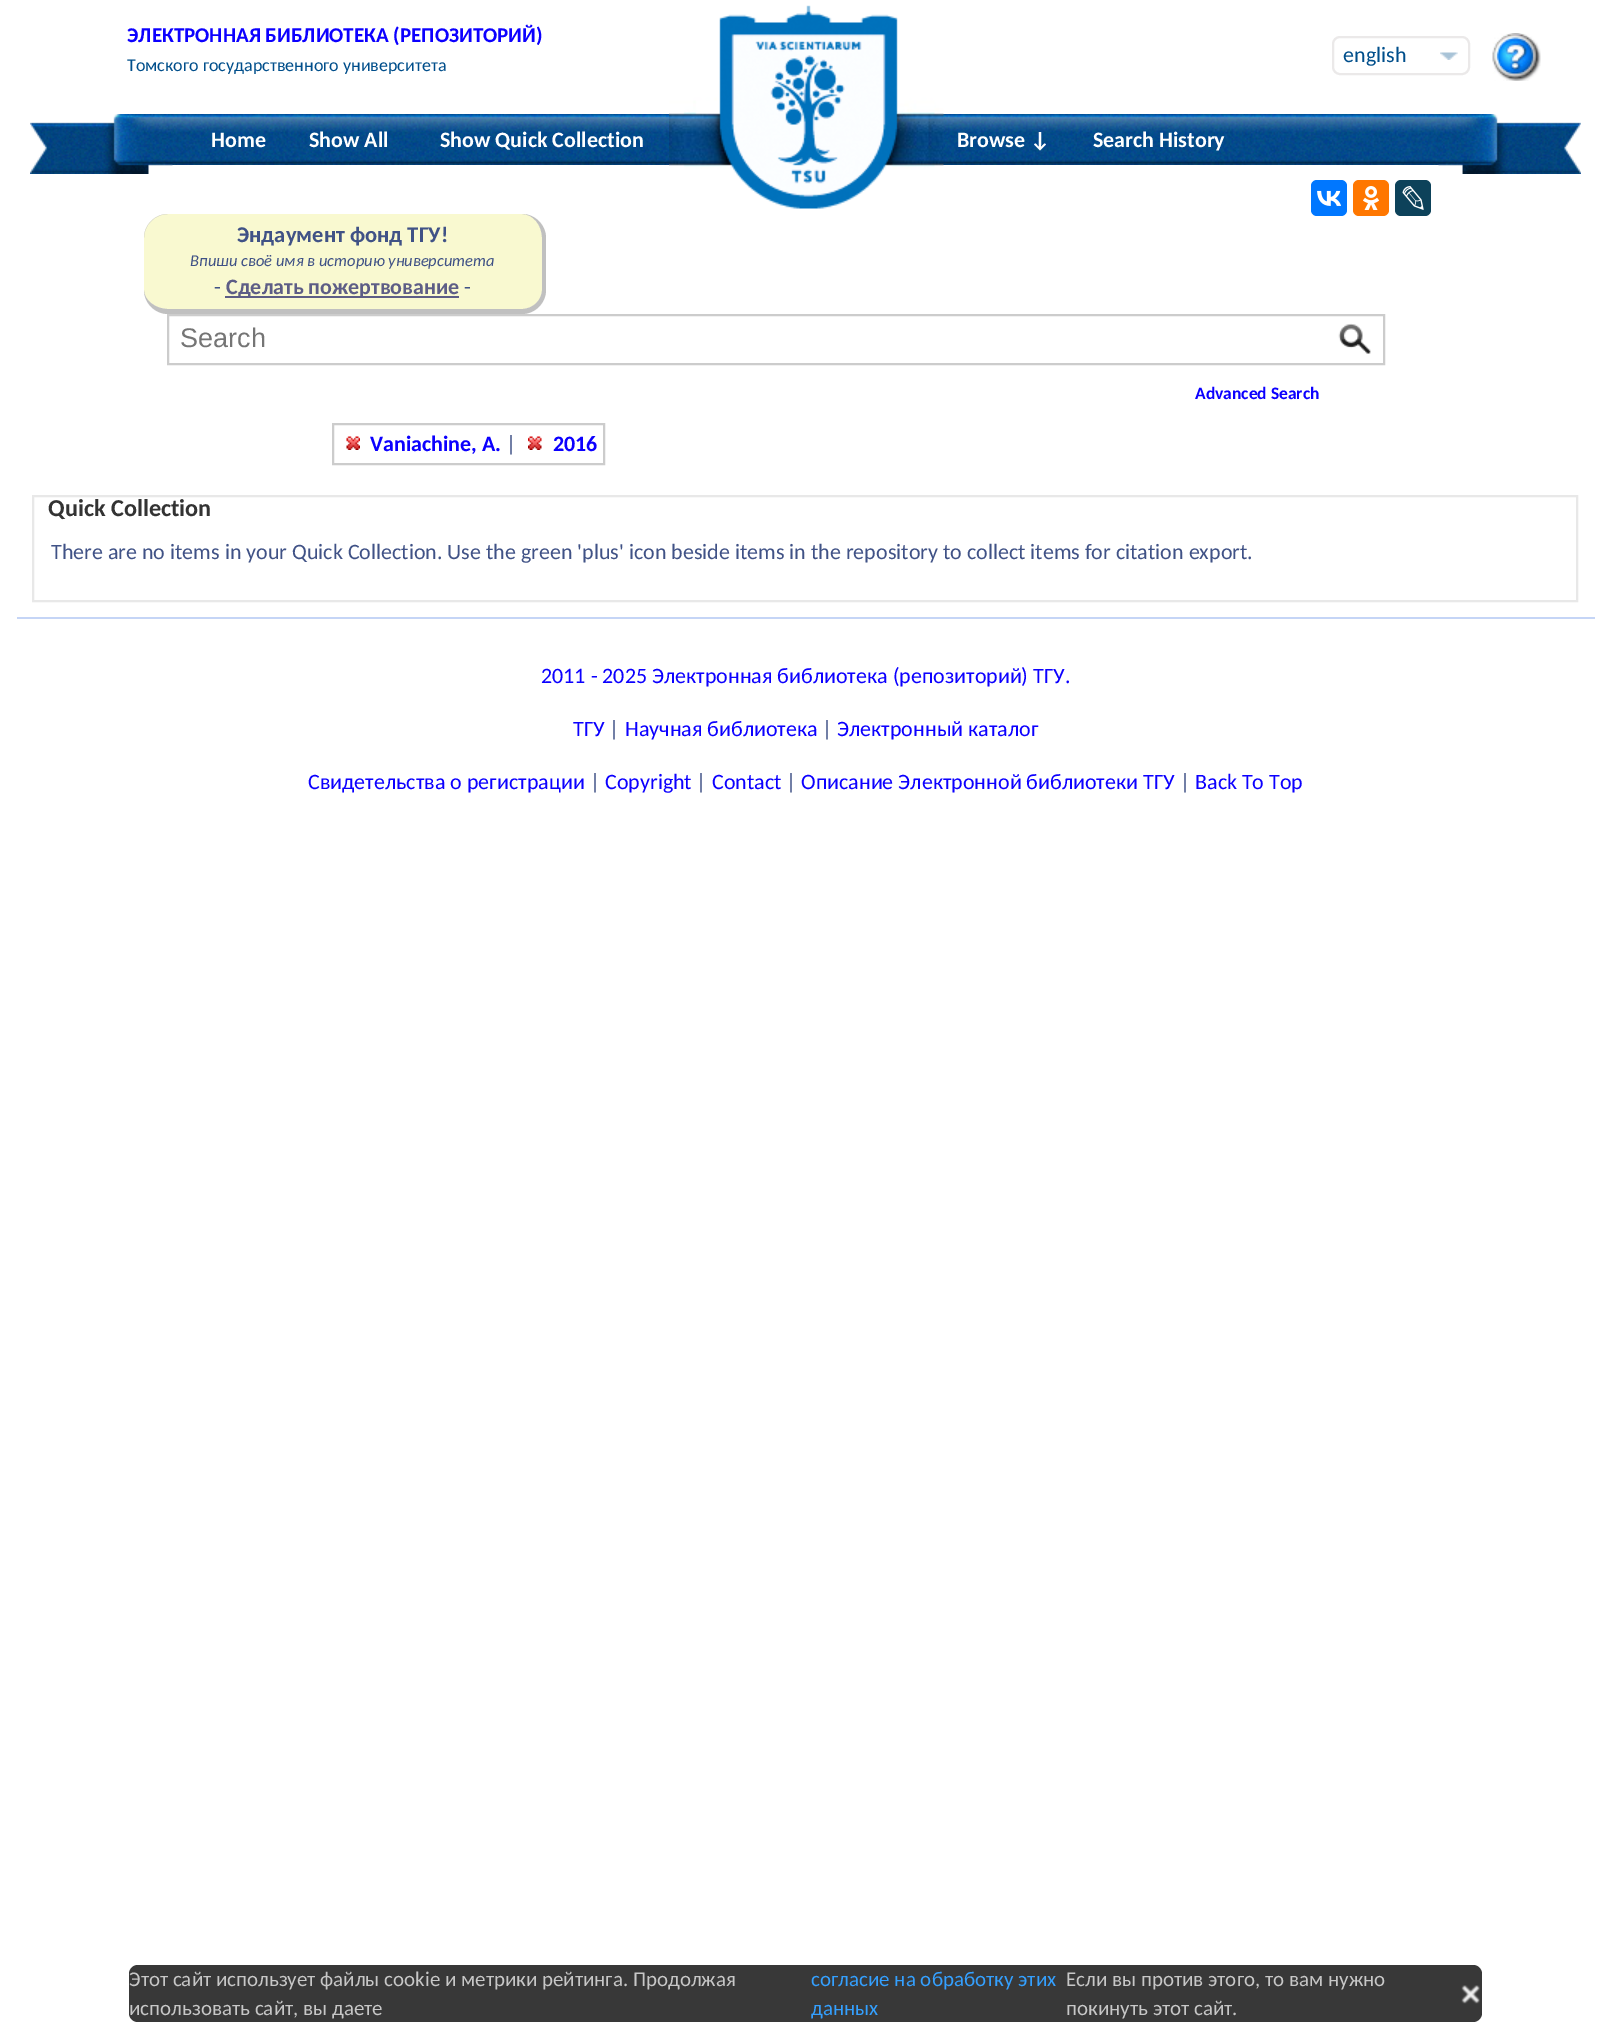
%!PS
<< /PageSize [1611 2032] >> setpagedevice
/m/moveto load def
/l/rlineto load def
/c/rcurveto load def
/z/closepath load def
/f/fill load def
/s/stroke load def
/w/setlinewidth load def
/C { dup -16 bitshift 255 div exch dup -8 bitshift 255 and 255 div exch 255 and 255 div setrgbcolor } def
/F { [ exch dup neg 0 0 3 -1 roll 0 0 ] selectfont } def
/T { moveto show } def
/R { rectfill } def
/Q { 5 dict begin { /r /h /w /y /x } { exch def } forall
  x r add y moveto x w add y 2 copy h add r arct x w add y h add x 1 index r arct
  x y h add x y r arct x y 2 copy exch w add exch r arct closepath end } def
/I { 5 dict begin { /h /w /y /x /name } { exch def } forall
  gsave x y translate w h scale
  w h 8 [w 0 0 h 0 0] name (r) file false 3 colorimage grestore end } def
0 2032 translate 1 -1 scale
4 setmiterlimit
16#FFFFFF C
0 0 1611 2032 R
/Carlito-Bold 21 F
16#0C00FF C
(ЭЛЕКТРОННАЯ БИБЛИОТЕКА \(РЕПОЗИТОРИЙ\)) 127 42 T
/Carlito-Regular 18 F
16#004E8B C
(Томского государственного университета) 127 71 T
16#EBE9E9 C
2 w
1333 37 136 37 7 Q s
(1.rgb) 1440 52 18 8 I
/Carlito-Regular 22 F
16#004E8B C
(english) 1343 62 T
(2.rgb) 1492 33 49 48 I
(4.rgb) 172 114 1267 51 I
(3.rgb) 30 114 143 60 I
/Carlito-Bold 22 F
16#FFFFFF C
(Home) 211 147 T
(Show All) 309 147 T
(Show Quick Collection) 440 147 T
(5.rgb) 669 5 275 204 I
(Browse ↓) 957 147 T
(Search History) 1093 147 T
(6.rgb) 1438 114 143 60 I
16#F9F9D0 C
168 214 m 354 0 l 11 0 20 11 20 24 c 0 52 l 0 10 -9 19 -20 19 c -354 0 l -13 0 -24 -9 -24 -19 c 0 -52 l 0 -13 11 -24 24 -24 c z f
16#C0C0C0 C
168 214 m 354 0 l 13 0 24 11 24 24 c 0 52 l 0 13 -11 24 -24 24 c -354 0 l -13 0 -24 -11 -24 -24 c 0 -52 l 0 -13 11 -24 24 -24 c z 168 214 m 354 0 l 11 0 20 11 20 24 c 0 52 l 0 10 -9 19 -20 19 c -354 0 l -13 0 -24 -9 -24 -19 c 0 -52 l 0 -13 11 -24 24 -24 c z eofill
/Carlito-Bold 22.5 F
16#405286 C
(Эндаумент фонд ТГУ!) 237 242 T
/Carlito-Italic 16.5 F
(Впиши своё имя в историю университета) 190 266 T
/Carlito-Regular 22 F
(-) 214 294 T
16#5D5D86 C
225 296 234 2 R
/Carlito-Bold 22 F
(Сделать пожертвование) 226 294 T
/Carlito-Regular 22 F
16#405286 C
(-) 464 294 T
16#CCCCCC C
168 315 1216 49 rectstroke
/LiberationSans-Regular 27 F
16#757575 C
(Search) 180 347 T
(7.rgb) 1338 323 33 31 I
/Carlito-Bold 17.5 F
16#0C00FF C
(Advanced Search) 1195 399 T
16#CCCCCC C
333 424 271 40 rectstroke
(8.rgb) 346 436 14 14 I
/Carlito-Bold 22 F
16#0C00FF C
(Vaniachine, A.) 370 451 T
/Carlito-Regular 22 F
16#405286 C
(|) 506 451 T
(9.rgb) 528 436 14 14 I
/Carlito-Bold 22 F
16#0C00FF C
(2016) 553 451 T
16#0077FF C
1311 180 36 36 6 Q f
(10.rgb) 1317 190 24 16 I
16#FF7700 C
1353 180 36 36 6 Q f
(11.rgb) 1363 186 17 24 I
16#0D425A C
1395 180 36 36 6 Q f
(12.rgb) 1402 186 22 24 I
16#E8E8E8 C
33 496 1544 105 rectstroke
/Carlito-Bold 24.25 F
16#333333 C
(Quick Collection) 48 516 T
/Carlito-Regular 22 F
16#405286 C
(There are no items in your Quick Collection. Use the green 'plus' icon beside items in the repository to collect items for citation export.) 51 559 T
16#C5D5F6 C
17 617 1578 2 R
16#0C00FF C
(2011 - 2025 Электронная библиотека \(репозиторий\) ТГУ.) 541 683 T
(ТГУ) 573 736 T
16#405286 C
(|) 609 736 T
16#0C00FF C
(Научная библиотека) 625 736 T
16#405286 C
(|) 822 736 T
16#0C00FF C
(Электронный каталог) 837 736 T
(Свидетельства о регистрации) 308 789 T
16#405286 C
(|) 590 789 T
16#0C00FF C
(Copyright) 605 789 T
16#405286 C
(|) 696 789 T
16#0C00FF C
(Contact) 712 789 T
16#405286 C
(|) 786 789 T
16#0C00FF C
(Описание Электронной библиотеки ТГУ) 801 789 T
16#405286 C
(|) 1180 789 T
16#0C00FF C
(Back To Top) 1195 789 T
16#383838 C
129 1965 1353 57 9 Q f
/Carlito-Regular 21 F
16#C7C7C7 C
(Этот сайт использует файлы cookie и метрики рейтинга. Продолжая) 129 1986 T
16#34A0FF C
(согласие на обработку этих) 811 1986 T
(данных) 811 2015 T
16#C7C7C7 C
(Если вы против этого, то вам нужно) 1066 1986 T
(13.rgb) 1461 1985 19 19 I
(использовать сайт, вы даете) 129 2015 T
(покинуть этот сайт.) 1066 2015 T
showpage
